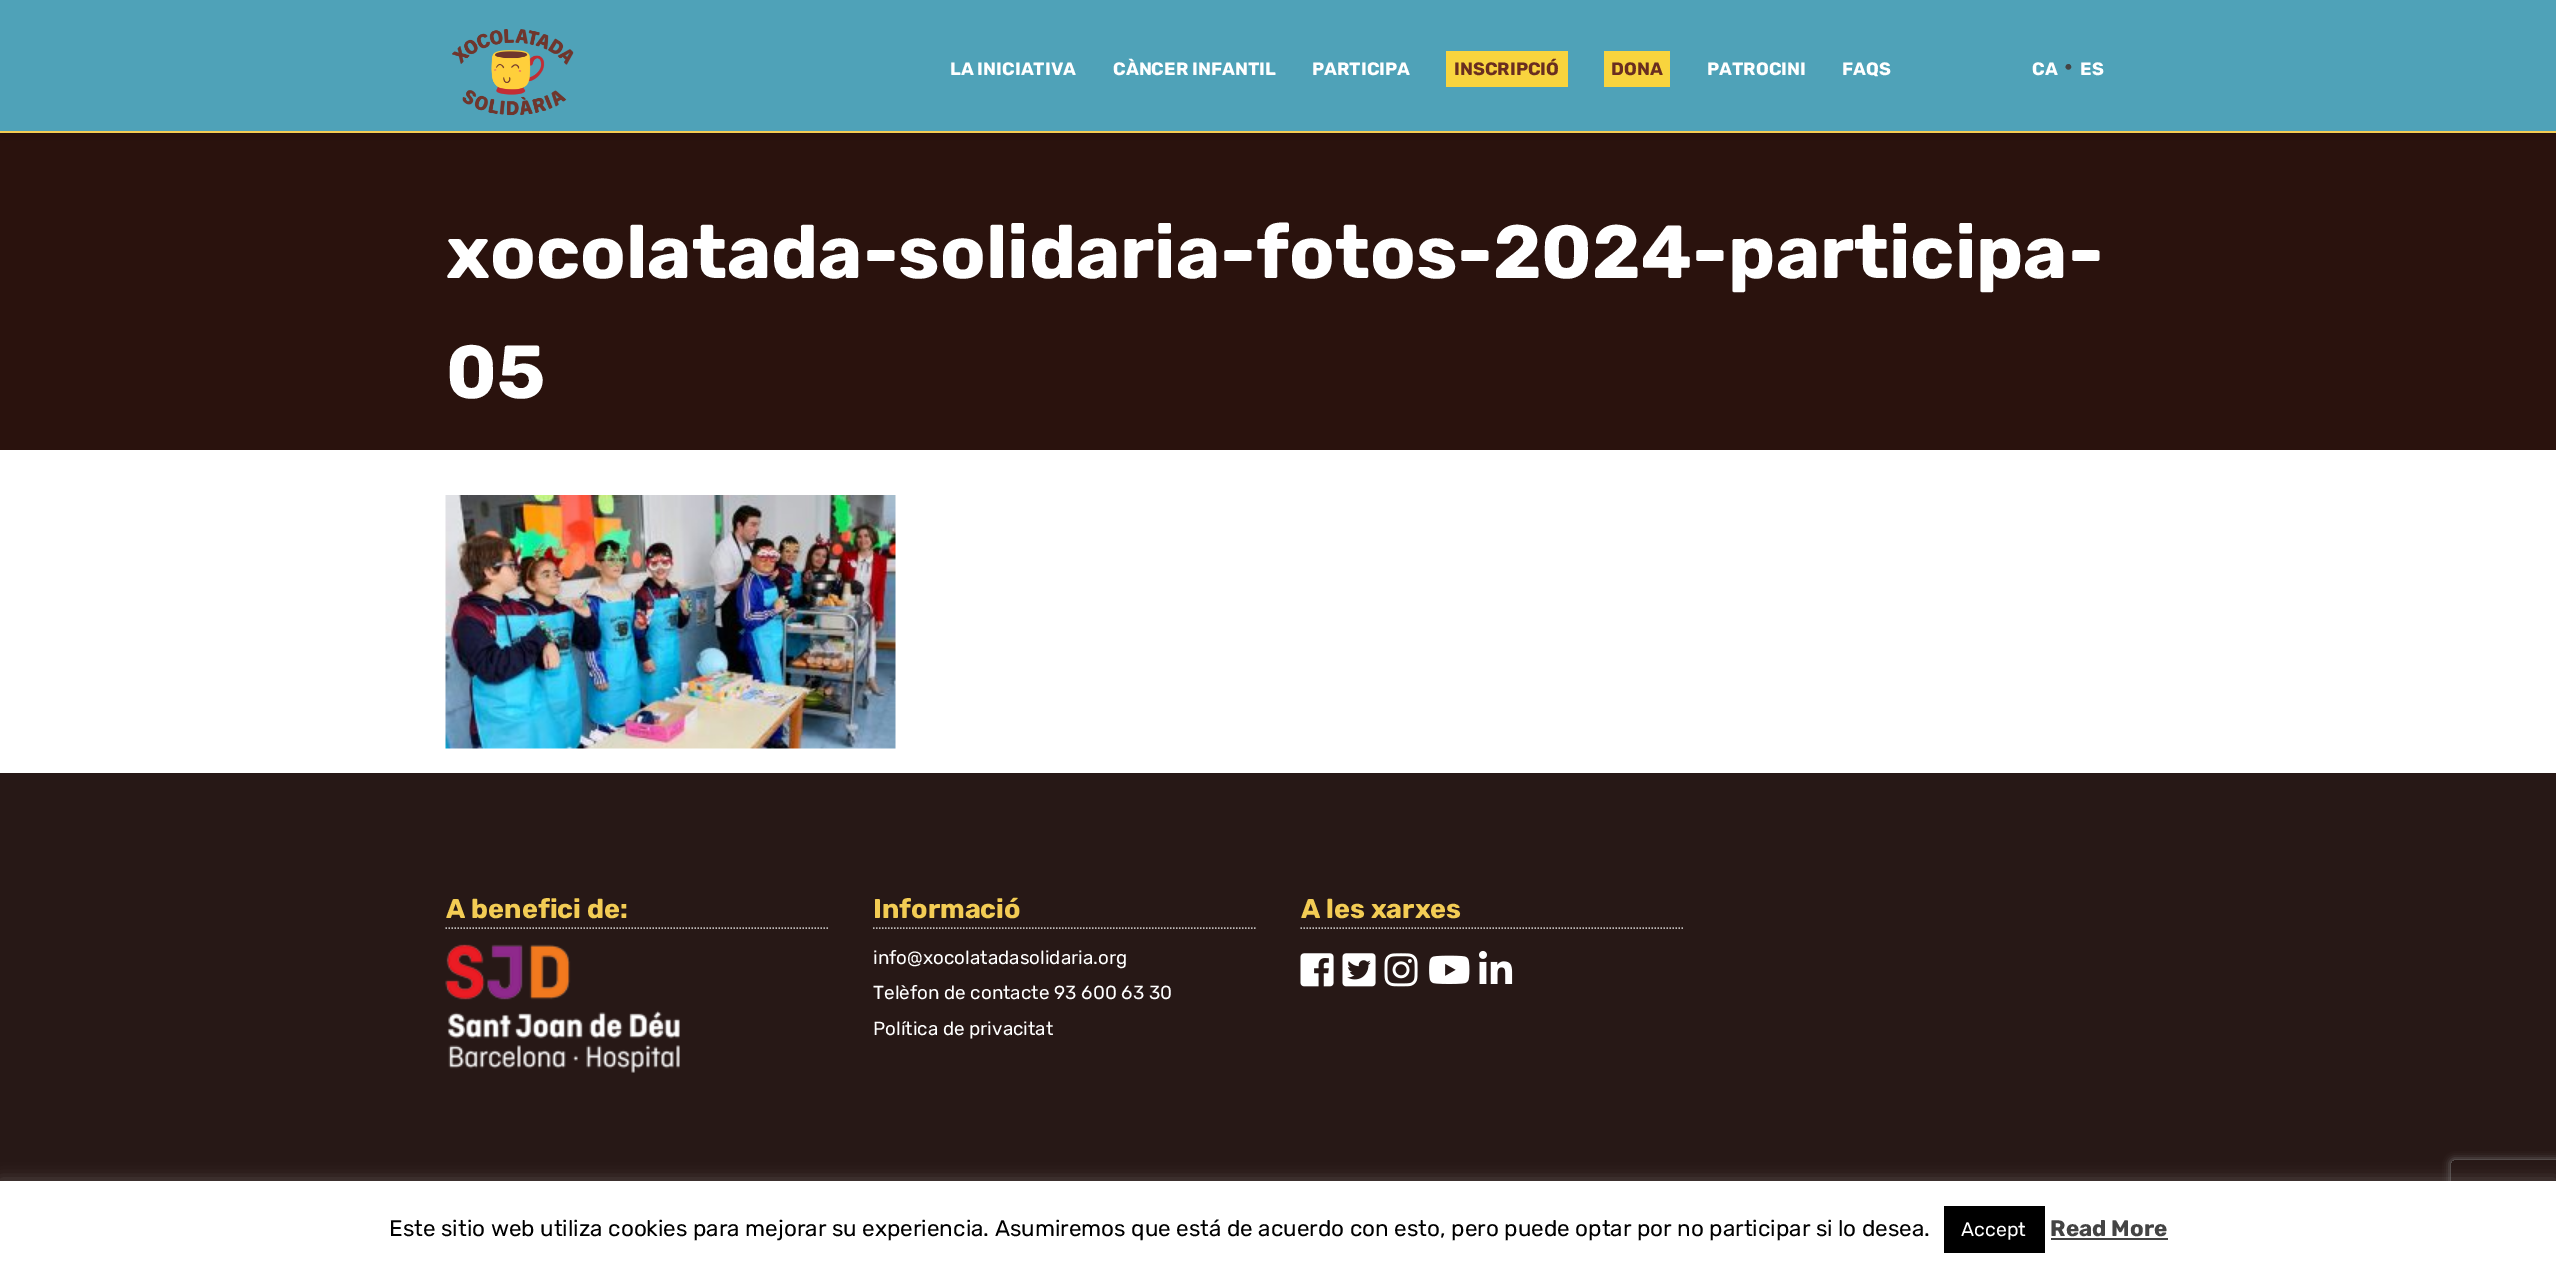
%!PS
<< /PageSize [2556 1270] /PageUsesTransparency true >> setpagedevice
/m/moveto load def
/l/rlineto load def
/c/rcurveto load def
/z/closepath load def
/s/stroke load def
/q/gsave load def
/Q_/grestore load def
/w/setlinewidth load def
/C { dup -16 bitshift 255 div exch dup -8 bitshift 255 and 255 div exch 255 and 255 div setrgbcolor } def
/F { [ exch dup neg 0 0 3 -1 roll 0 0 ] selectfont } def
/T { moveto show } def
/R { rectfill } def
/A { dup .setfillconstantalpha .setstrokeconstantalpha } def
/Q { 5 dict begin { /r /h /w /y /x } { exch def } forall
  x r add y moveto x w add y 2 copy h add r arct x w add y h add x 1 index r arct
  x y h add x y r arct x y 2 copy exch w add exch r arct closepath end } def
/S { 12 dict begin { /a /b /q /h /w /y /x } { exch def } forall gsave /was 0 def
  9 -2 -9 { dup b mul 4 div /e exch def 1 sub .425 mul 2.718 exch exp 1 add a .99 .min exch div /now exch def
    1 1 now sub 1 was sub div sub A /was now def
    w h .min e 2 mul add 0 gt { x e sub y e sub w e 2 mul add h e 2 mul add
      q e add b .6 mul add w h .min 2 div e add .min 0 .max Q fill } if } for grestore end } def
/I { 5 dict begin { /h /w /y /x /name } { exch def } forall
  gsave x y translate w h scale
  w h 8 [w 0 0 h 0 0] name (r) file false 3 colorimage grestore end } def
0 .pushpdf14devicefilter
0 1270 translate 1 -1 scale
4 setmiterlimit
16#FFFFFF C
0 0 2556 1270 R
16#2A120D C
0 133 2556 317 R
16#000000 C
0 0 2556 132 0 7.5 .3 S
16#4FA2B8 C
0 0 2556 131 R
16#F3CC54 C
0 131 2556 2 R
(1.rgb) 452 29 122 87 I
/Rubik-Bold 18 F
16#FFFFFF C
(LA INICIATIVA) 950 75 T
(CÀNCER INFANTIL) 1113 75 T
(PARTICIPA) 1312 75 T
16#F8D43E C
1446 51 122 36 R
16#692E20 C
(INSCRIPCIÓ) 1454 75 T
16#F8D43E C
1604 51 66 36 R
16#692E20 C
(DONA) 1611 75 T
16#FFFFFF C
(PATROCINI) 1707 75 T
(FAQS) 1842 75 T
(CA) 2032 75 T
/Rubik-Regular 27 F
16#444444 C
(·) 2064 75 T
/Rubik-Bold 18 F
16#FFFFFF C
(ES) 2080 75 T
/Rubik-Bold 75 F
(xocolatada-solidaria-fotos-2024-participa-) 446 278 T
(05) 446 398 T
(2.rgb) 445 495 451 254 I
16#271816 C
0 773 2556 408 R
16#BEBAB9 C
1.5 w
[1.5 1.5] 0 setdash
445.5 928 m 382.5 0 l s
/Rubik-Bold 27 F
16#F3CC54 C
(A benefici de:) 446 918 T
(3.rgb) 445 944 235 129 I
16#BEBAB9 C
873 928 m 382.5 0 l s
16#F3CC54 C
(Informació) 873 918 T
/Rubik-Regular 18.9 F
16#FFFFFF C
(info@xocolatadasolidaria.org) 873 964 T
(Telèfon de contacte 93 600 63 30) 873 999 T
(Política de privacitat) 873 1035 T
16#BEBAB9 C
1300.5 928 m 382.5 0 l s
/Rubik-Bold 27 F
16#F3CC54 C
(A les xarxes) 1301 918 T
(4.rgb) 1300 953 34 34 I
(5.rgb) 1342 953 34 34 I
(6.rgb) 1384 953 34 34 I
(7.rgb) 1429 955 41 29 I
(8.rgb) 1479 950 34 34 I
16#ACABAB C
0 1179 2556 90 0 7.5 .3 S
q
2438 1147 m 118 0 l 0 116 l -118 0 l z 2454 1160 m 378 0 l 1.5 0 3 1.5 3 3 c 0 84 l 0 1.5 -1.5 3 -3 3 c -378 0 l -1.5 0 -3 -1.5 -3 -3 c 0 -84 l 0 -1.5 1.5 -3 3 -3 c z eoclip newpath
16#808080 C
2451 1160 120 90 3 4 1 S
Q_
16#FFFFFF C
0 1181 2556 89 R
/Rubik-Regular 22.5 F
16#000000 C
(Este sitio web utiliza cookies para mejorar su experiencia. Asumiremos que está de acuerdo con esto, pero puede optar por no participar si lo desea.) 389 1236 T
1944 1206 101 47 R
/Rubik-Regular 19.5 F
16#FFFFFF C
(Accept) 1961 1236 T
/Rubik-Bold 22.5 F
16#444444 C
(Read More) 2050 1236 T
2051 1238 117 2 R
.poppdf14devicefilter showpage
